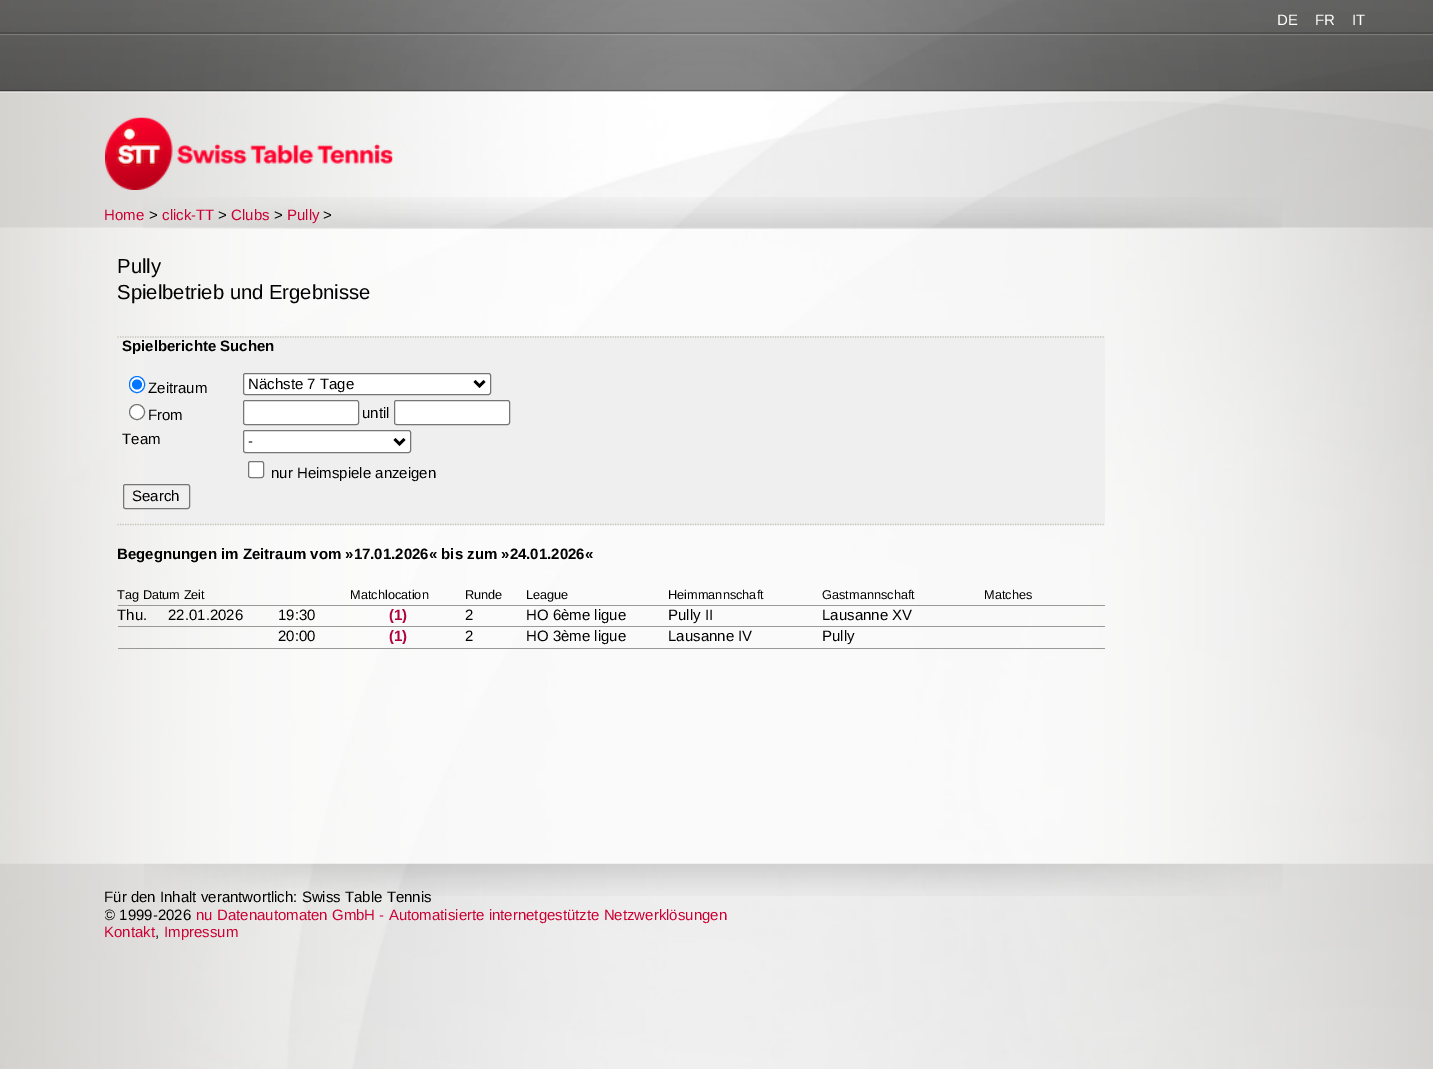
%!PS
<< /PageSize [1433 1069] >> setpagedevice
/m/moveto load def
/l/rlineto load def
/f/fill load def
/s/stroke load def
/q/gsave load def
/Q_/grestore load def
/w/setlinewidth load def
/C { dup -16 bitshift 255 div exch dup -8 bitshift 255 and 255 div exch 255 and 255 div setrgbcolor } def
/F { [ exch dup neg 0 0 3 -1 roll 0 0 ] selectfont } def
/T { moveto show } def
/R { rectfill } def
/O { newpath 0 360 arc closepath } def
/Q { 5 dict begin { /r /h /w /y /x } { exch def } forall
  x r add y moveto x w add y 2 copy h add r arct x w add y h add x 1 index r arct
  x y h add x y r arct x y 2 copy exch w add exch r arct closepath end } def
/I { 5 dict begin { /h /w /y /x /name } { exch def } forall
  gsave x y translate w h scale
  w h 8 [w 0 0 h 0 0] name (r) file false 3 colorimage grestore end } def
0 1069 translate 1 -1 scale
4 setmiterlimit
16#FFFFFF C
0 0 1433 1069 R
(1.rgb) 0 0 1433 1069 I
(2.rgb) 0 0 1433 93 I
(3.rgb) 0 227 1433 637 I
/LiberationSans-Regular 15 F
(DE) 1277 25 T
(FR) 1315 25 T
(IT) 1352 25 T
(4.rgb) 143 197 1139 32 I
(5.rgb) 105 117 288 73 I
16#CC0033 C
(Home) 104 220 T
16#000000 C
(>) 149 220 T
16#CC0033 C
(click-TT) 162 220 T
16#000000 C
(>) 218 220 T
16#CC0033 C
(Clubs) 231 220 T
16#000000 C
(>) 274 220 T
16#CC0033 C
(Pully) 287 220 T
16#000000 C
(>) 323 220 T
/LiberationSans-Regular 20.25 F
(Pully) 117 273 T
(Spielbetrieb und Ergebnisse) 117 299 T
16#EFEFEF C
144 336 961 189 R
16#C5C4B9 C
1.2 w
[1.25 1.25] 0 setdash
117.5 337 m 987.5 0 l s
117.5 524.5 m 987.5 0 l s
/LiberationSans-Bold 15 F
16#000000 C
(Spielberichte Suchen) 122 351 T
16#FFFFFF C
129.5 376.5 15 16 7.5 Q q f Q_
16#0075FF C
1 w
[] 0 setdash
s
137 384.5 5 O f
/LiberationSans-Regular 15 F
16#000000 C
(Zeitraum) 148 393 T
16#FFFFFF C
243.5 373.5 247 21 2 Q q f Q_
16#767676 C
s
16#000000 C
2.5 w
474.5 381 m 5 5 l 5 -5 l s
(Nächste 7 Tage) 248 389 T
16#FFFFFF C
137 412 7.5 O q f Q_
16#767676 C
1 w
s
16#000000 C
(From) 148 420 T
16#FFFFFF C
243.5 400.5 115 24 2 Q q f Q_
16#767676 C
s
16#000000 C
(until) 362 418 T
16#FFFFFF C
394.5 400.5 115 24 2 Q q f Q_
16#767676 C
s
16#000000 C
(Team) 122 444 T
16#FFFFFF C
243.5 430.5 167 22 2 Q q f Q_
16#767676 C
s
16#000000 C
2.5 w
394.5 439 m 5 5 l 5 -5 l s
(-) 248 446 T
16#FFFFFF C
248.5 461.5 15 16 2 Q q f Q_
16#767676 C
1 w
s
16#000000 C
(nur Heimspiele anzeigen) 271 478 T
16#767676 C
123.5 484.5 66 24 2 Q s
16#000000 C
(Search) 132 501 T
/LiberationSans-Bold 15 F
(Begegnungen im Zeitraum vom »17.01.2026« bis zum »24.01.2026«) 117 559 T
16#999999 C
118 605 987 1 R
/LiberationSans-Regular 12.75 F
16#000000 C
(Tag Datum Zeit) 117 599 T
(Matchlocation) 350 599 T
(Runde) 465 599 T
(League) 526 599 T
(Heimmannschaft) 668 599 T
(Gastmannschaft) 822 599 T
(Matches) 984 599 T
16#999999 C
118 626 987 1 R
/LiberationSans-Regular 15 F
16#000000 C
(Thu.) 117 620 T
(22.01.2026) 168 620 T
(19:30) 278 620 T
/LiberationSans-Bold 15 F
16#B0003C C
(\(1\)) 389 620 T
/LiberationSans-Regular 15 F
16#000000 C
(2) 465 620 T
(HO 6ème ligue) 526 620 T
(Pully II) 668 620 T
(Lausanne XV) 822 620 T
(20:00) 278 641 T
/LiberationSans-Bold 15 F
16#B0003C C
(\(1\)) 389 641 T
/LiberationSans-Regular 15 F
16#000000 C
(2) 465 641 T
(HO 3ème ligue) 526 641 T
(Lausanne IV) 668 641 T
(Pully) 822 641 T
16#999999 C
118 648 987 1 R
(6.rgb) 144 863 1139 33 I
16#000000 C
(Für den Inhalt verantwortlich: Swiss Table Tennis) 104 902 T
q
105 864 1225 92 rectclip
(© 1999-2026) 104 920 T
Q_
16#CC0033 C
(nu Datenautomaten GmbH - Automatisierte internetgestützte Netzwerklösungen) 196 920 T
(Kontakt) 104 937 T
16#000000 C
(,) 155 937 T
16#CC0033 C
(Impressum) 164 937 T
showpage
